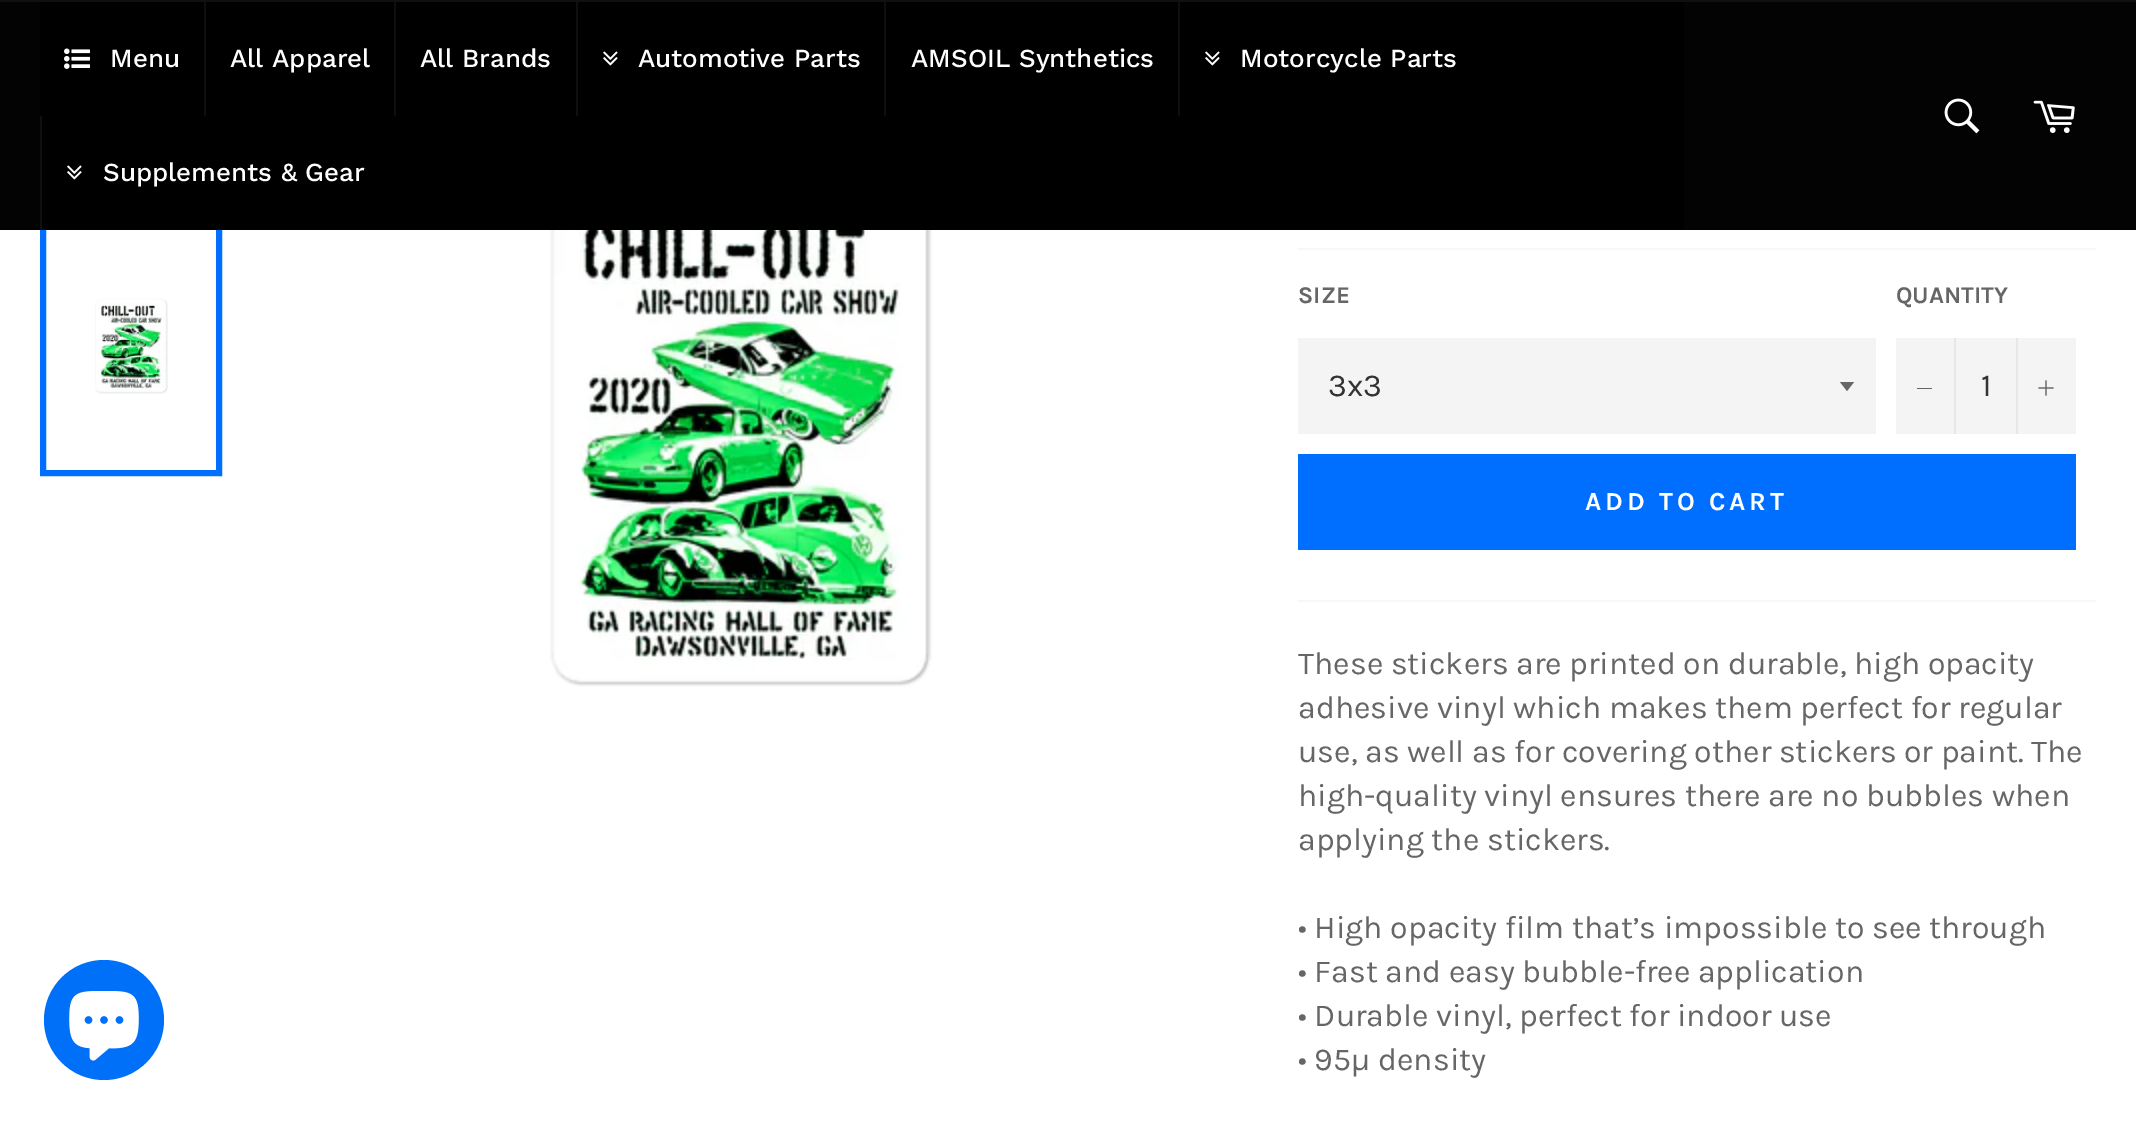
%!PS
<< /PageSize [2136 1121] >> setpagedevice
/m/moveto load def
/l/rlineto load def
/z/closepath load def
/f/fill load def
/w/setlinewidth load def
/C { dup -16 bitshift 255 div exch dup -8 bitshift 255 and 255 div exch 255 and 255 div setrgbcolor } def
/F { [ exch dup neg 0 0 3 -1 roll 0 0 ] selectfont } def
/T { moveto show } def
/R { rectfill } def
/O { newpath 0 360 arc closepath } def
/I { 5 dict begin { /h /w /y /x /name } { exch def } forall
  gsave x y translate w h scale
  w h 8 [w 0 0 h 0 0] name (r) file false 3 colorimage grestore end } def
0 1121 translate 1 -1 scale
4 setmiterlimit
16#FFFFFF C
0 0 2136 1121 R
(6.rgb) 95 298 73 96 I
16#006EFF C
6 w
43 219 176 254 rectstroke
16#030303 C
0 2 2136 228 R
16#101010 C
0 0 2136 2 R
16#000000 C
40 2 1644 228 R
(1.rgb) 64 48 26 21 I
/WorkSans-Medium 26 F
16#FFFFFF C
(Menu) 110 67 T
16#0F0F0F C
204 2 2 114 R
16#FFFFFF C
(All Apparel) 230 67 T
16#0F0F0F C
394 2 2 114 R
16#FFFFFF C
(All Brands) 420 67 T
16#0F0F0F C
576 2 2 114 R
(2.rgb) 603 51 15 15 I
16#FFFFFF C
(Automotive Parts) 638 67 T
16#0F0F0F C
884 2 2 114 R
16#FFFFFF C
(AMSOIL Synthetics) 911 67 T
16#0F0F0F C
1178 2 2 114 R
(2.rgb) 1205 51 15 15 I
16#FFFFFF C
(Motorcycle Parts) 1240 67 T
16#0F0F0F C
40 116 2 114 R
(2.rgb) 67 165 15 15 I
16#FFFFFF C
(Supplements & Gear) 103 181 T
(3.rgb) 1944 98 36 36 I
(4.rgb) 2033 100 42 33 I
16#0070F8 C
104 1020 60 O f
(5.rgb) 69 991 70 70 I
(7.rgb) 550 230 382 457 I
16#F7F7F7 C
1298 248 798 2 R
/Karla-Bold 24 F
16#666666 C
(SIZE) 1298 303 T
16#F4F4F4 C
1298 338 578 96 R
16#666666 C
1840 382 m 7 9 l 7 -9 l z f
/Karla-Regular 32 F
16#333333 C
(3x3) 1328 396 T
/Karla-Bold 24 F
16#666666 C
(QUANTITY) 1896 303 T
16#F4F4F4 C
1896 338 180 96 R
16#E7E7E7 C
1954 338 2 96 R
16#666666 C
1917 388 15 1 R
/Karla-Regular 32 F
16#333333 C
(1) 1981 396 T
16#E7E7E7 C
2016 338 2 96 R
(8.rgb) 2038 380 16 16 I
16#006EFF C
1298 454 778 96 R
/Karla-Bold 26 F
16#FFFFFF C
1585 510 m 3.9 0 (ADD TO CART) ashow
16#F7F7F7 C
1298 600 798 2 R
/Karla-Regular 32 F
16#666666 C
(These stickers are printed on durable, high opacity) 1298 674 T
(adhesive vinyl which makes them perfect for regular) 1298 718 T
(use, as well as for covering other stickers or paint. The) 1298 762 T
(high-quality vinyl ensures there are no bubbles when) 1298 806 T
(applying the stickers.) 1298 850 T
(• High opacity film that’s impossible to see through) 1298 938 T
(• Fast and easy bubble-free application) 1298 982 T
(• Durable vinyl, perfect for indoor use) 1298 1026 T
(• 95µ density) 1298 1070 T
showpage
